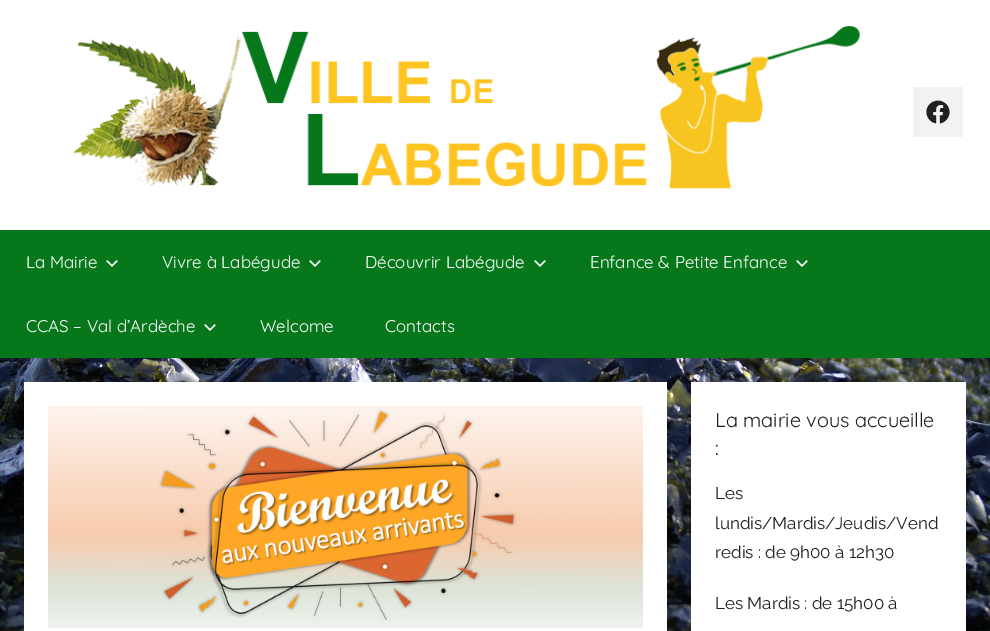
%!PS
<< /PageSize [990 631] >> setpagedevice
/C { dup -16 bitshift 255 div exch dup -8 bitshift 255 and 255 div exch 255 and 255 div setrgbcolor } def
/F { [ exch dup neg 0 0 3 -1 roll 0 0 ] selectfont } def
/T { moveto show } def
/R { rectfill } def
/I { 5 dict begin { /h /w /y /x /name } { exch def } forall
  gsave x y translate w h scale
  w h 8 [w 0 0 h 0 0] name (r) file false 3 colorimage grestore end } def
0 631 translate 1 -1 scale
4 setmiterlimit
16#FFFFFF C
0 0 990 631 R
(1.rgb) 0 358 990 273 I
(2.rgb) 73 26 787 163 I
16#F2F2F2 C
913 87 50 50 R
(3.rgb) 926 100 24 24 I
16#06781B C
0 230 990 128 R
/Quicksand-Light 17 F
16#FFFFFF C
(La Mairie) 26 268 T
(4.rgb) 106 260 12 7 I
(Vivre à Labégude) 162 268 T
(4.rgb) 309 260 12 7 I
(Découvrir Labégude) 365 268 T
(4.rgb) 534 260 12 7 I
(Enfance & Petite Enfance) 590 268 T
(4.rgb) 796 260 12 7 I
(CCAS – Val d’Ardèche) 26 332 T
(4.rgb) 204 324 12 7 I
(Welcome) 260 332 T
(Contacts) 385 332 T
24 382 643 249 R
(5.rgb) 48 406 595 222 I
691 382 275 249 R
/Quicksand-Light 20 F
16#202020 C
(La mairie vous accueille) 715 427 T
(:) 715 455 T
/Raleway-Thin 17 F
(Les) 715 499 T
(lundis/Mardis/Jeudis/Vend) 715 529 T
(redis : de 9h00 à 12h30) 715 558 T
(Les Mardis : de 15h00 à) 715 609 T
showpage
